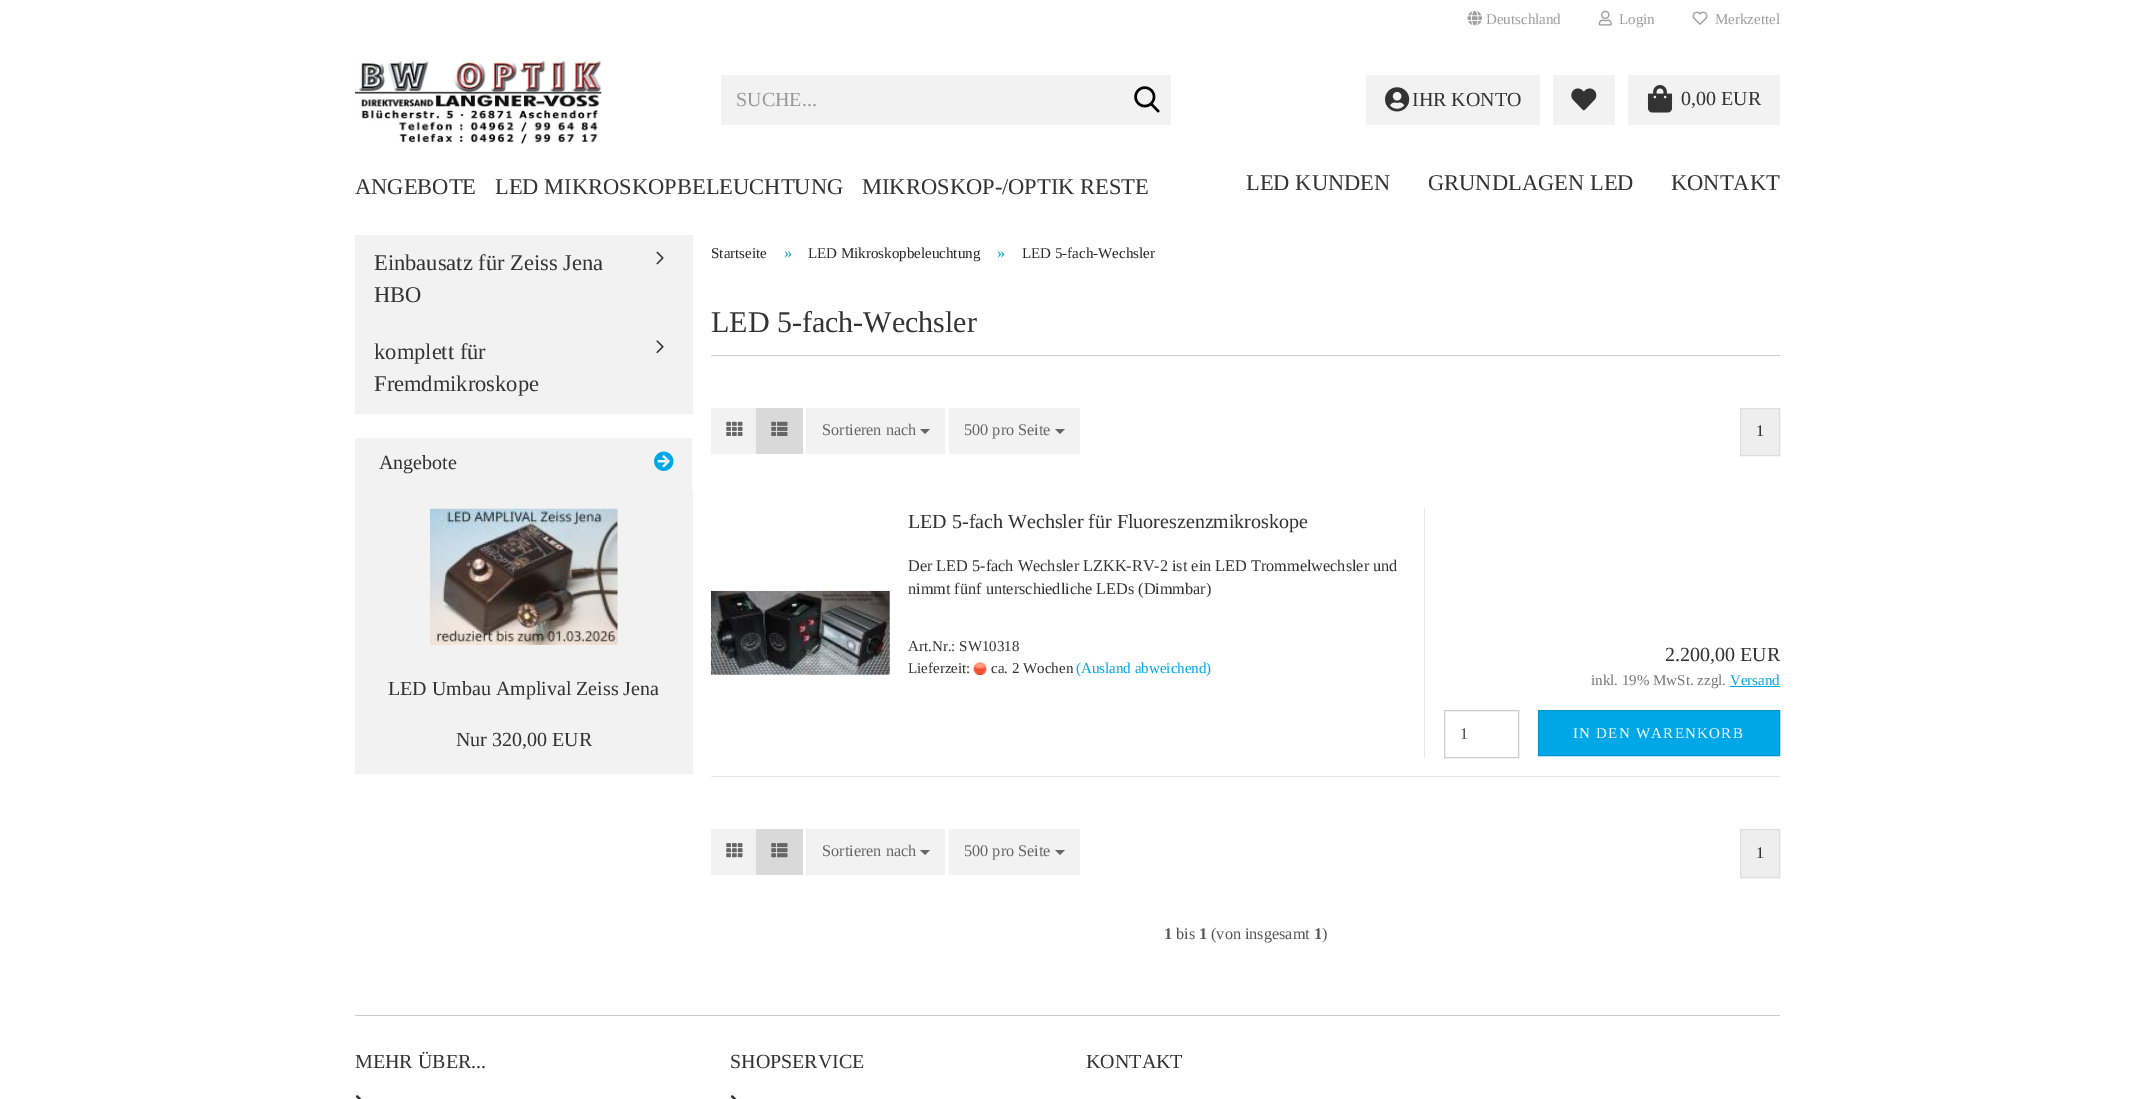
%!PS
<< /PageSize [2134 1099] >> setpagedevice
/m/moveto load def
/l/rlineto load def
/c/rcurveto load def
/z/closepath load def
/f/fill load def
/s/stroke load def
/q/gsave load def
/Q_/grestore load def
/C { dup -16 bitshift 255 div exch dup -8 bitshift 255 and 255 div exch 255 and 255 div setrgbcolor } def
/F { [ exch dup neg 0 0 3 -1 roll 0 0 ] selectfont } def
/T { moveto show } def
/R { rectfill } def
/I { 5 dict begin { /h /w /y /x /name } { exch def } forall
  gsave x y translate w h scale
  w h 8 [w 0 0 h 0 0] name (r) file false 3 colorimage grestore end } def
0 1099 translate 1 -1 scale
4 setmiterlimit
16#FFFFFF C
0 0 2134 1099 R
(1.rgb) 1467 10 15 16 I
/LiberationSerif-Regular 15 F
16#9F9F9F C
(Deutschland) 1486 24 T
(2.rgb) 1598 10 14 16 I
(Login) 1619 24 T
(3.rgb) 1692 11 16 14 I
(Merkzettel) 1715 24 T
(4.rgb) 355 56 247 88 I
16#F2F2F2 C
721 75 450 50 R
/LiberationSerif-Regular 20 F
16#999999 C
(SUCHE...) 736 106 T
(5.rgb) 1134 86 26 27 I
16#F2F2F2 C
1366 75 174 50 R
(6.rgb) 1385 87 25 25 I
16#333333 C
(IHR KONTO) 1412 106 T
16#F2F2F2 C
1553 75 62 50 R
(7.rgb) 1571 88 26 23 I
1628 75 152 50 R
(8.rgb) 1647 85 26 28 I
16#333333 C
(0,00 EUR) 1681 105 T
/LiberationSerif-Regular 22.5 F
(ANGEBOTE) 355 194 T
(LED MIKROSKOPBELEUCHTUNG) 495 194 T
(MIKROSKOP-/OPTIK RESTE) 862 194 T
(LED KUNDEN) 1246 190 T
(GRUNDLAGEN LED) 1428 190 T
(KONTAKT) 1671 190 T
16#F2F2F2 C
355 235 338 179 R
16#333333 C
(Einbausatz für Zeiss Jena) 374 270 T
(9.rgb) 656 251 8 14 I
(HBO) 374 302 T
(komplett für) 374 359 T
(10.rgb) 656 340 8 14 I
(Fremdmikroskope) 374 391 T
16#F2F2F2 C
356 436 m 336 0 l .5 0 1 .5 1 1 c 0 53 l -338 0 l 0 -53 l 0 -.5 .5 -1 1 -1 c z f
16#FFFFFF C
356 438 m 335 0 l 1 0 1 0 1 1 c 0 51 l 1 0 l 0 -53 l 0 -1 0 -1 -1 -1 c -336 0 l -1 0 -1 0 -1 1 c 0 2 l z f
/LiberationSerif-Regular 20 F
16#333333 C
(Angebote) 379 469 T
(11.rgb) 654 451 20 20 I
16#F2F2F2 C
355 490 338 284 R
(12.rgb) 430 508 188 137 I
16#333333 C
(LED Umbau Amplival Zeiss Jena) 388 695 T
(Nur 320,00 EUR) 456 746 T
/LiberationSerif-Regular 15 F
16#262626 C
(Startseite) 711 258 T
/LiberationSerif-Regular 16.25 F
16#00A7E7 C
(») 784 258 T
/LiberationSerif-Regular 15 F
16#262626 C
(LED Mikroskopbeleuchtung) 808 258 T
/LiberationSerif-Regular 16.25 F
16#00A7E7 C
(») 997 258 T
/LiberationSerif-Regular 15 F
16#262626 C
(LED 5-fach-Wechsler) 1022 258 T
16#CCCCCC C
711 355 1069 1 R
/LiberationSerif-Regular 30 F
16#333333 C
(LED 5-fach-Wechsler) 711 332 T
16#F2F2F2 C
711 408 45 46 R
(13.rgb) 726 421 17 15 I
16#D9D9D9 C
756 408 47 46 R
(14.rgb) 771 421 17 15 I
16#F2F2F2 C
806 408 139 46 R
/LiberationSerif-Regular 16.25 F
16#666666 C
(Sortieren nach) 822 435 T
920 429 m 10 0 l -5 5 l z f
16#F2F2F2 C
949 408 131 46 R
16#666666 C
(500 pro Seite) 964 435 T
1055 429 m 10 0 l -5 5 l z f
16#EEEEEE C
1740.5 408.5 m 39 0 l 0 47 l -39 0 l z q f Q_
16#DDDDDD C
s
16#333333 C
(1) 1756 436 T
16#E7E7E7 C
711 776 1069 1 R
(15.rgb) 710 590 180 85 I
/LiberationSerif-Regular 20 F
16#333333 C
(LED 5-fach Wechsler für Fluoreszenzmikroskope) 908 528 T
/LiberationSerif-Regular 16.25 F
(Der LED 5-fach Wechsler LZKK-RV-2 ist ein LED Trommelwechsler und) 908 571 T
(nimmt fünf unterschiedliche LEDs \(Dimmbar\)) 908 594 T
/LiberationSerif-Regular 15 F
(Art.Nr.: SW10318) 908 651 T
(Lieferzeit:) 908 673 T
(16.rgb) 973 662 14 13 I
(ca. 2 Wochen) 991 673 T
16#00A7E7 C
(\(Ausland abweichend\)) 1076 673 T
16#E7E7E7 C
1424 508 1 250 R
/LiberationSerif-Regular 20 F
16#333333 C
(2.200,00 EUR) 1665 661 T
/LiberationSerif-Regular 15 F
16#777777 C
(inkl. 19% MwSt. zzgl.) 1591 685 T
16#00A7E7 C
(Versand) 1730 685 T
1730 686 50 1 R
16#CCCCCC C
1444.5 710.5 74 47 rectstroke
/LiberationSerif-Regular 16.25 F
16#555555 C
(1) 1460 739 T
16#00A7E7 C
1538.5 710.5 m 241 0 l 0 45 l -241 0 l z q f Q_
16#0095CE C
s
/LiberationSerif-Regular 15 F
16#FFFFFF C
1573 738 m 1.25 0 (IN DEN WARENKORB) ashow
16#F2F2F2 C
711 829 45 46 R
(17.rgb) 726 843 17 15 I
16#D9D9D9 C
756 829 47 46 R
(18.rgb) 771 843 17 15 I
16#F2F2F2 C
806 829 139 46 R
/LiberationSerif-Regular 16.25 F
16#666666 C
(Sortieren nach) 822 856 T
920 850 m 10 0 l -5 5 l z f
16#F2F2F2 C
949 829 131 46 R
16#666666 C
(500 pro Seite) 964 856 T
1055 850 m 10 0 l -5 5 l z f
16#EEEEEE C
1740.5 829.5 m 39 0 l 0 48 l -39 0 l z q f Q_
16#DDDDDD C
s
16#333333 C
(1) 1756 858 T
/LiberationSerif-Bold 16.25 F
16#555555 C
(1) 1164 939 T
/LiberationSerif-Regular 16.25 F
(bis) 1176 939 T
/LiberationSerif-Bold 16.25 F
(1) 1199 939 T
/LiberationSerif-Regular 16.25 F
(\(von insgesamt) 1211 939 T
/LiberationSerif-Bold 16.25 F
(1) 1314 939 T
/LiberationSerif-Regular 16.25 F
(\)) 1322 939 T
16#CCCCCC C
355 1015 1425 1 R
/LiberationSerif-Regular 20 F
16#333333 C
(MEHR ÜBER...) 355 1068 T
(19.rgb) 355 1095 7 4 I
(SHOPSERVICE) 730 1068 T
(19.rgb) 730 1095 7 4 I
(KONTAKT) 1086 1068 T
showpage
